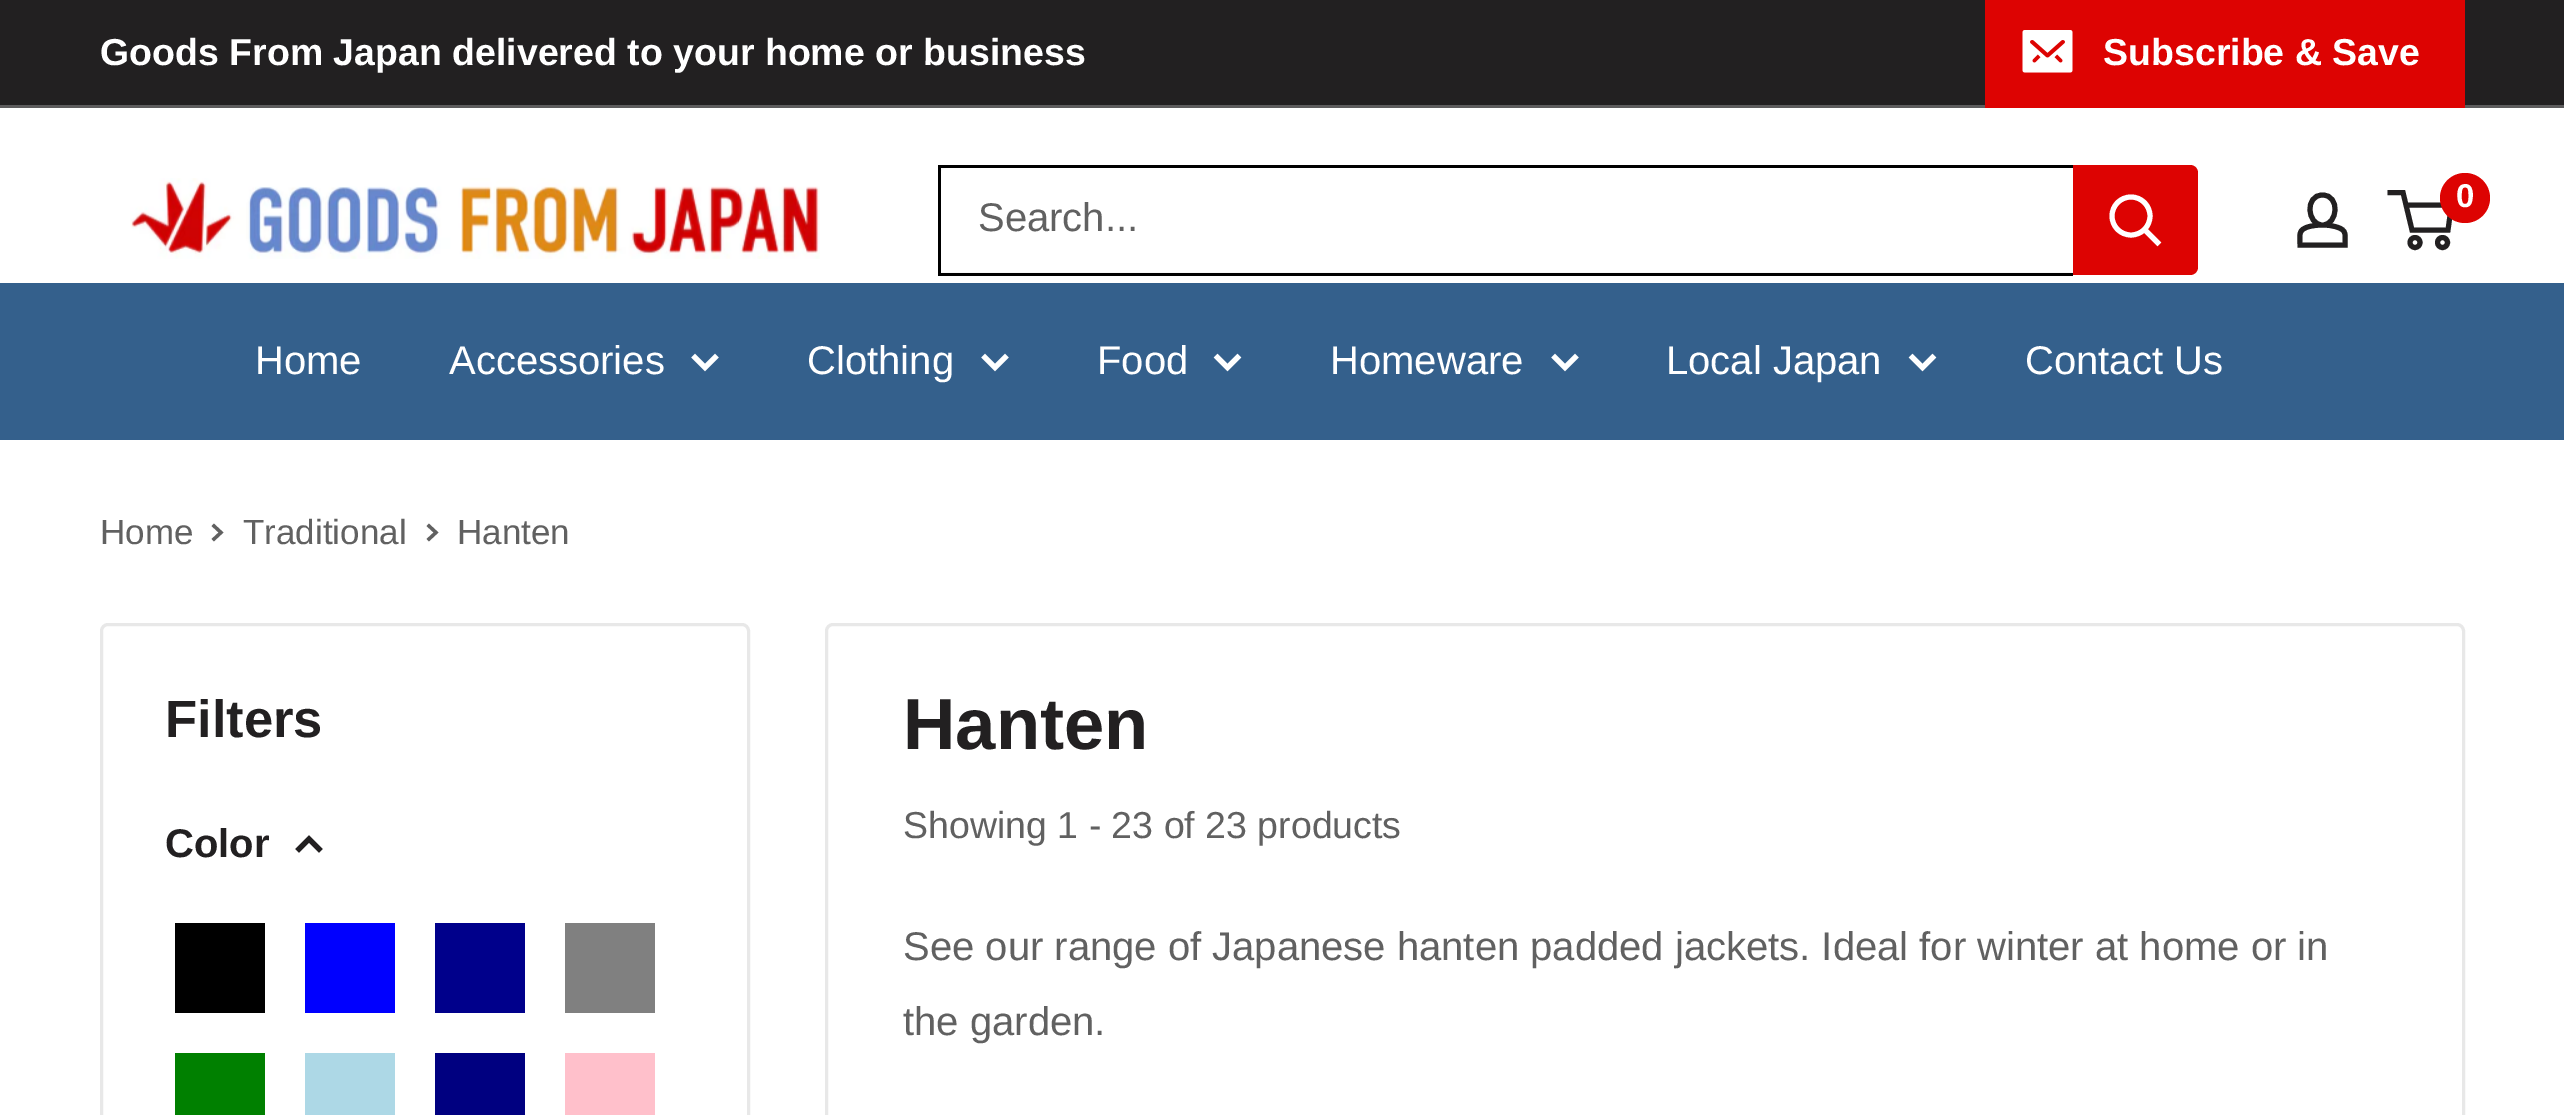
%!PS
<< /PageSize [2564 1115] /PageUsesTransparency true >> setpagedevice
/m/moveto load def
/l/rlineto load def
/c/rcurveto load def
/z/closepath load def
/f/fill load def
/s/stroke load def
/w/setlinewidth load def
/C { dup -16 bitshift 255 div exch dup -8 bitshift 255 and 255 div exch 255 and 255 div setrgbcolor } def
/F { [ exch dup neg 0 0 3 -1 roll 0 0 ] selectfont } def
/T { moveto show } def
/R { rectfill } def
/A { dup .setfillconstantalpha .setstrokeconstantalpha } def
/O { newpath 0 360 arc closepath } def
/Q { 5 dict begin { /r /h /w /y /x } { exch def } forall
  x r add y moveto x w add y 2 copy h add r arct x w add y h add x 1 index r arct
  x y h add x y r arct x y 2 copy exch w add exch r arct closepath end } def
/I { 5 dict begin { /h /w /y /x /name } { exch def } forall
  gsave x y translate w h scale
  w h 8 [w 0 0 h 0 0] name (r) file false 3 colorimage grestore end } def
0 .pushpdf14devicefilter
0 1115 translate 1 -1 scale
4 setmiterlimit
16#FFFFFF C
0 0 2564 1115 R
16#222021 C
0 0 2564 105 R
16#5D5C5D C
0 105 2564 3 R
/LiberationSans-Bold 37.5 F
16#FFFFFF C
(Goods From Japan delivered to your home or business) 100 65 T
16#DD0302 C
1985 0 480 108 R
(1.rgb) 2022 30 51 43 I
16#FFFFFF C
(Subscribe & Save) 2103 65 T
(2.rgb) 130 178 690 81 I
16#222021 C
5 w
2322.5 225 m 4.5 0 9.5 .5 14 2 c 11 3 8.5 8.5 8.5 18 c -45 0 l 0 -10 -2.5 -15.5 9.5 -18.5 c 4 -1 8.5 -1.5 13 -1.5 c z 2322.5 225 m -15.5 0 -18 -30 0 -30 c 18 0 15.5 30 0 30 c z s
2415 242.5 5 O s
2442.5 242.5 5 O s
2406 205 m 45.5 0 l -3.5 25 l -36 0 l -9 -37.5 l -15.5 0 l s
16#DD0302 C
2465 198 25 O f
/LiberationSans-Bold 33 F
16#FFFFFF C
(0) 2456 207 T
16#F8F8F8 C
939 272 m 2 2 4 3 7 3 c 1244 0 l 4 0 8 -4 8 -8 c 0 -94 l 0 -3 -2 -6 -4 -7 c 1 4 l 0 95 l 0 4 -3 7 -7 7 c -1246 0 l z f
0.3 A
16#E8E8E8 C
948 168 m 1244 0 l 2 0 4 1 5 1 c -1 -2 -4 -4 -7 -4 c -1244 0 l -4 0 -8 4 -8 8 c 0 94 l 0 2 1 4 2 6 c 0 -3 l 0 -95 l 0 -4 3 -7 8 -7 c z f
1 A
16#000000 C
938 165 1135 3 R
938 273 1135 3 R
938 165 3 110 R
/LiberationSans-Regular 40 F
16#616161 C
(Search...) 978 231 T
16#DD0302 C
2073 165 m 117 0 l 4.5 0 8 3.5 8 8 c 0 94 l 0 4.5 -3.5 8 -8 8 c -117 0 l z f
16#FFFFFF C
2 setlinecap
2157.5 242.5 m -12.5 -12.5 l s
0 setlinecap
2131 216 19 O s
16#34608C C
0 283 2564 157 R
16#FFFFFF C
(Home) 255 374 T
(Accessories) 449 374 T
2 setlinecap
715 357.5 m -10 10 l -10 -10 l s
(Clothing) 807 374 T
1005 357.5 m -10 10 l -10 -10 l s
(Food) 1097 374 T
1237.5 357.5 m -10 10 l -10 -10 l s
(Homeware) 1330 374 T
1575 357.5 m -10 10 l -10 -10 l s
(Local Japan) 1666 374 T
1932.5 357.5 m -10 10 l -10 -10 l s
(Contact Us) 2025 374 T
/LiberationSans-Regular 35 F
16#616161 C
(Home) 100 544 T
3.3 w
214 526 m 7 6.5 l -7 6.5 l s
(Traditional) 243 544 T
429 526 m 7 6.5 l -7 6.5 l s
(Hanten) 457 544 T
16#E8E8E8 C
3 w
0 setlinecap
101.5 624.5 647 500 6.5 Q s
/LiberationSans-Bold 52.5 F
16#222021 C
(Filters) 165 737 T
/LiberationSans-Bold 40 F
(Color) 165 857 T
5 w
2 setlinecap
299 849 m 10 -10 l 10 10 l s
16#000000 C
175 923 90 90 R
16#0000FF C
305 923 90 90 R
16#00008B C
435 923 90 90 R
16#808080 C
565 923 90 90 R
16#008000 C
175 1053 90 62 R
16#ADD8E6 C
305 1053 90 62 R
16#000080 C
435 1053 90 62 R
16#FFC0CB C
565 1053 90 62 R
16#E8E8E8 C
3 w
0 setlinecap
826.5 624.5 1637 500 6.5 Q s
/LiberationSans-Bold 72.5 F
16#222021 C
(Hanten) 903 749 T
/LiberationSans-Regular 37.5 F
16#616161 C
(Showing 1 - 23 of 23 products) 903 838 T
/LiberationSans-Regular 40 F
(See our range of Japanese hanten padded jackets. Ideal for winter at home or in) 903 960 T
(the garden.) 903 1035 T
.poppdf14devicefilter showpage
